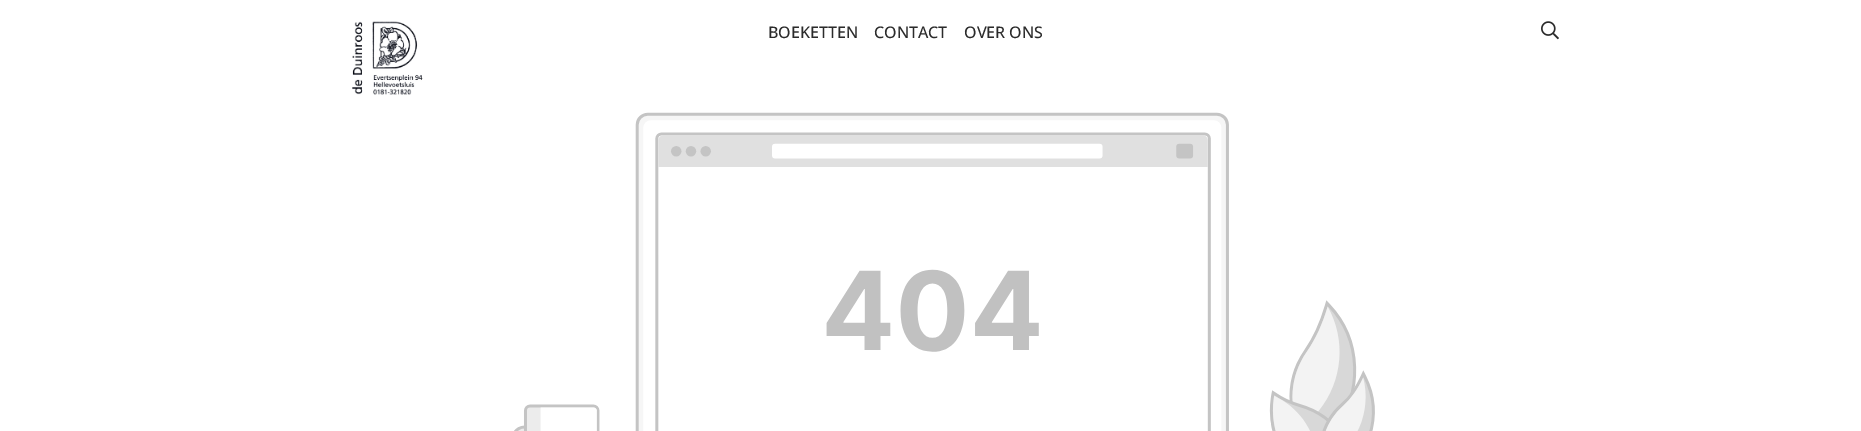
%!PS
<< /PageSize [1861 431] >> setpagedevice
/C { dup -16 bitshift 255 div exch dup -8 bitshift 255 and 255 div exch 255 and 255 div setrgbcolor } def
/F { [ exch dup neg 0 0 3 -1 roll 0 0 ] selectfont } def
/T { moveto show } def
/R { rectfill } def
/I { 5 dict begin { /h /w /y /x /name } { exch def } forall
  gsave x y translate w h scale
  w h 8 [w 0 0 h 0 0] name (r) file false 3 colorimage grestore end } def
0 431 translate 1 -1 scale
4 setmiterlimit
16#FFFFFF C
0 0 1861 431 R
(1.rgb) 352 21 71 74 I
/OpenSans-Medium 16 F
16#2B2B2B C
(BOEKETTEN) 768 38 T
(CONTACT) 874 38 T
(OVER ONS) 964 38 T
(2.rgb) 1541 21 18 19 I
(3.rgb) 514 112 861 319 I
showpage
